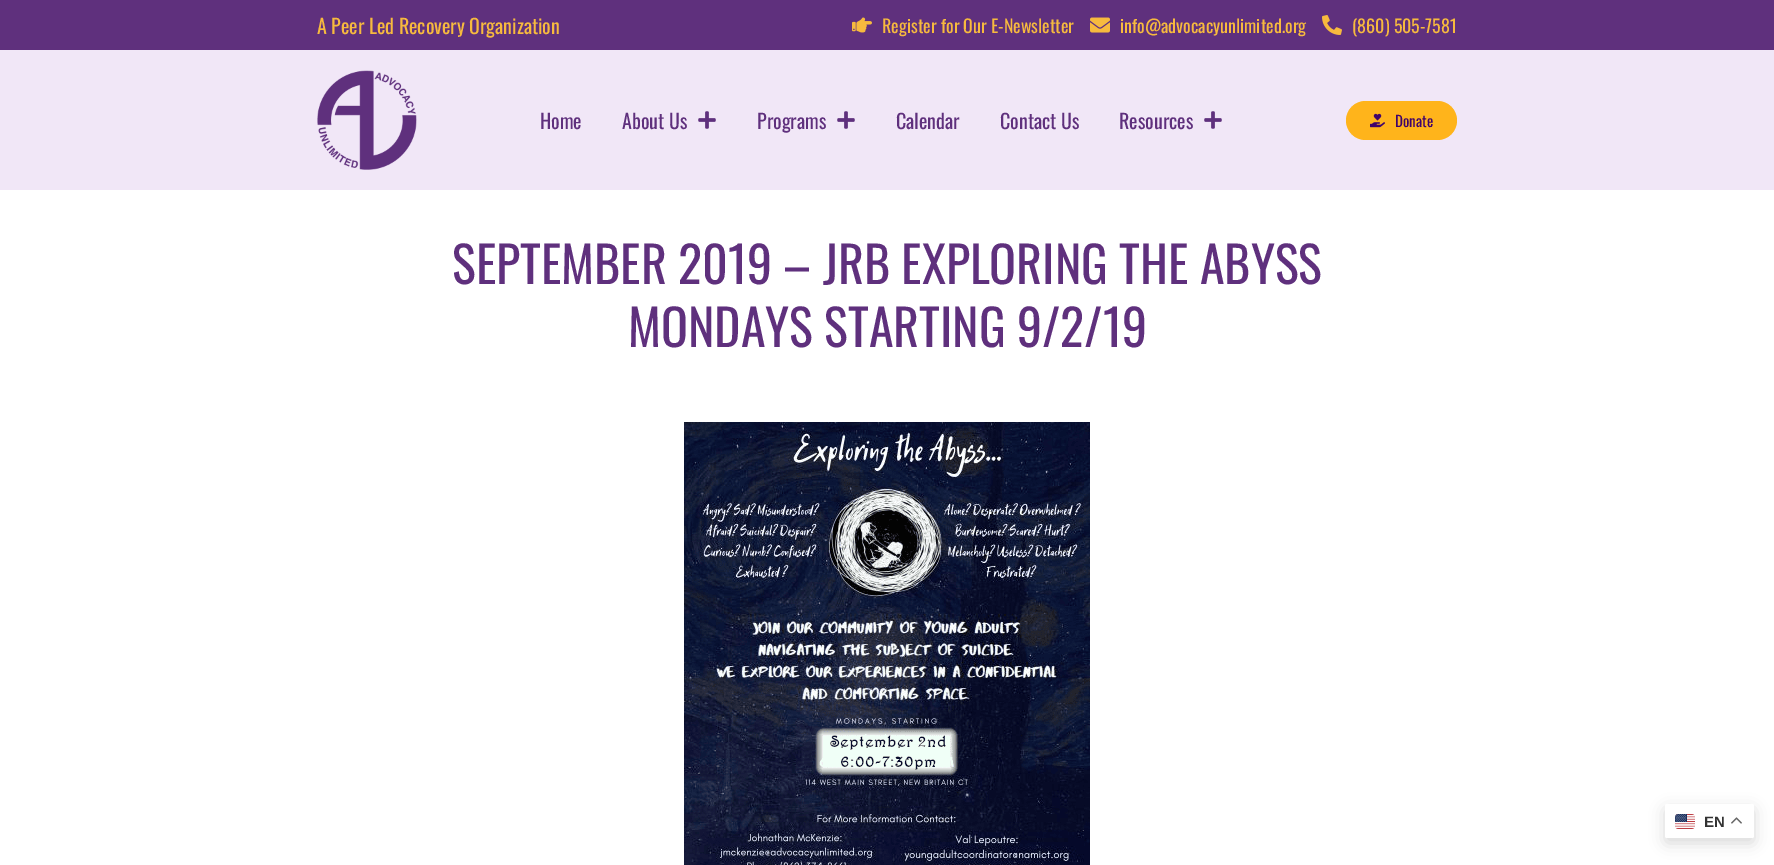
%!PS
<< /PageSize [1774 865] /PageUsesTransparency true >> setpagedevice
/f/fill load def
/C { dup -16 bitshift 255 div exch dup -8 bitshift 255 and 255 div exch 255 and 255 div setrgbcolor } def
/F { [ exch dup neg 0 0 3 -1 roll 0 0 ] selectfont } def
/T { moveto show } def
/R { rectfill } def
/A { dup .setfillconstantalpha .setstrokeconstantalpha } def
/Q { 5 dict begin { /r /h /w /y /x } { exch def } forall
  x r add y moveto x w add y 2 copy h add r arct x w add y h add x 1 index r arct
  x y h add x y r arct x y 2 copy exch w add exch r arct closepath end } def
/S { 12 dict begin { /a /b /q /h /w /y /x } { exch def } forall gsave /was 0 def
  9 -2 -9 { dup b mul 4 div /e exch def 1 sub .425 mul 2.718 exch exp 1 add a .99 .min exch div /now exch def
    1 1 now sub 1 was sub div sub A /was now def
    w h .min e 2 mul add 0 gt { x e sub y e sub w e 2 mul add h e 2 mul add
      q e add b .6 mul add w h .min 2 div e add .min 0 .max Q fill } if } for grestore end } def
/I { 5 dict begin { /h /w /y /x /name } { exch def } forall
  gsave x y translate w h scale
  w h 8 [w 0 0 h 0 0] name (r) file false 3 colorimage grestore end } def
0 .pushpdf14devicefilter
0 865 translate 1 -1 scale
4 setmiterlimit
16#FFFFFF C
0 0 1774 865 R
16#5F307D C
0 0 1774 50 R
/Oswald-Regular 20 F
16#F7BA3E C
(A Peer Led Recovery Organization) 317 34 T
(1.rgb) 852 17 20 16 I
/Oswald-Regular 18 F
(Register for Our E-Newsletter) 882 33 T
(2.rgb) 1090 17 20 16 I
(info@advocacyunlimited.org) 1120 33 T
(3.rgb) 1322 15 20 20 I
(\(860\) 505-7581) 1352 33 T
16#F1E7F7 C
0 50 1774 140 R
(4.rgb) 317 70 100 100 I
/Oswald-Regular 20 F
16#5F307D C
(Home) 540 129 T
(About Us) 622 129 T
(5.rgb) 698 111 18 18 I
(Programs) 757 129 T
(5.rgb) 837 111 18 18 I
(Calendar) 896 129 T
(Contact Us) 1000 129 T
(Resources) 1119 129 T
(5.rgb) 1204 111 18 18 I
16#FFB41B C
1346 101 111 39 19.5 Q f
(6.rgb) 1370 113 15 15 I
/Oswald-Regular 15 F
16#40036B C
(Donate) 1395 127 T
/Oswald-Regular 50 F
16#5F307D C
(SEPTEMBER 2019 – JRB EXPLORING THE ABYSS) 452 284 T
(MONDAYS STARTING 9/2/19) 628 347 T
(7.rgb) 684 422 406 443 I
16#000000 C
1665 809 89 34 2 7.5 .15 S
16#FFFFFF C
1665 804 89 34 2 Q f
(8.rgb) 1675 814 20 15 I
/LiberationSans-Bold 15 F
16#333333 C
(EN) 1704 827 T
(9.rgb) 1731 817 11 7 I
.poppdf14devicefilter showpage
